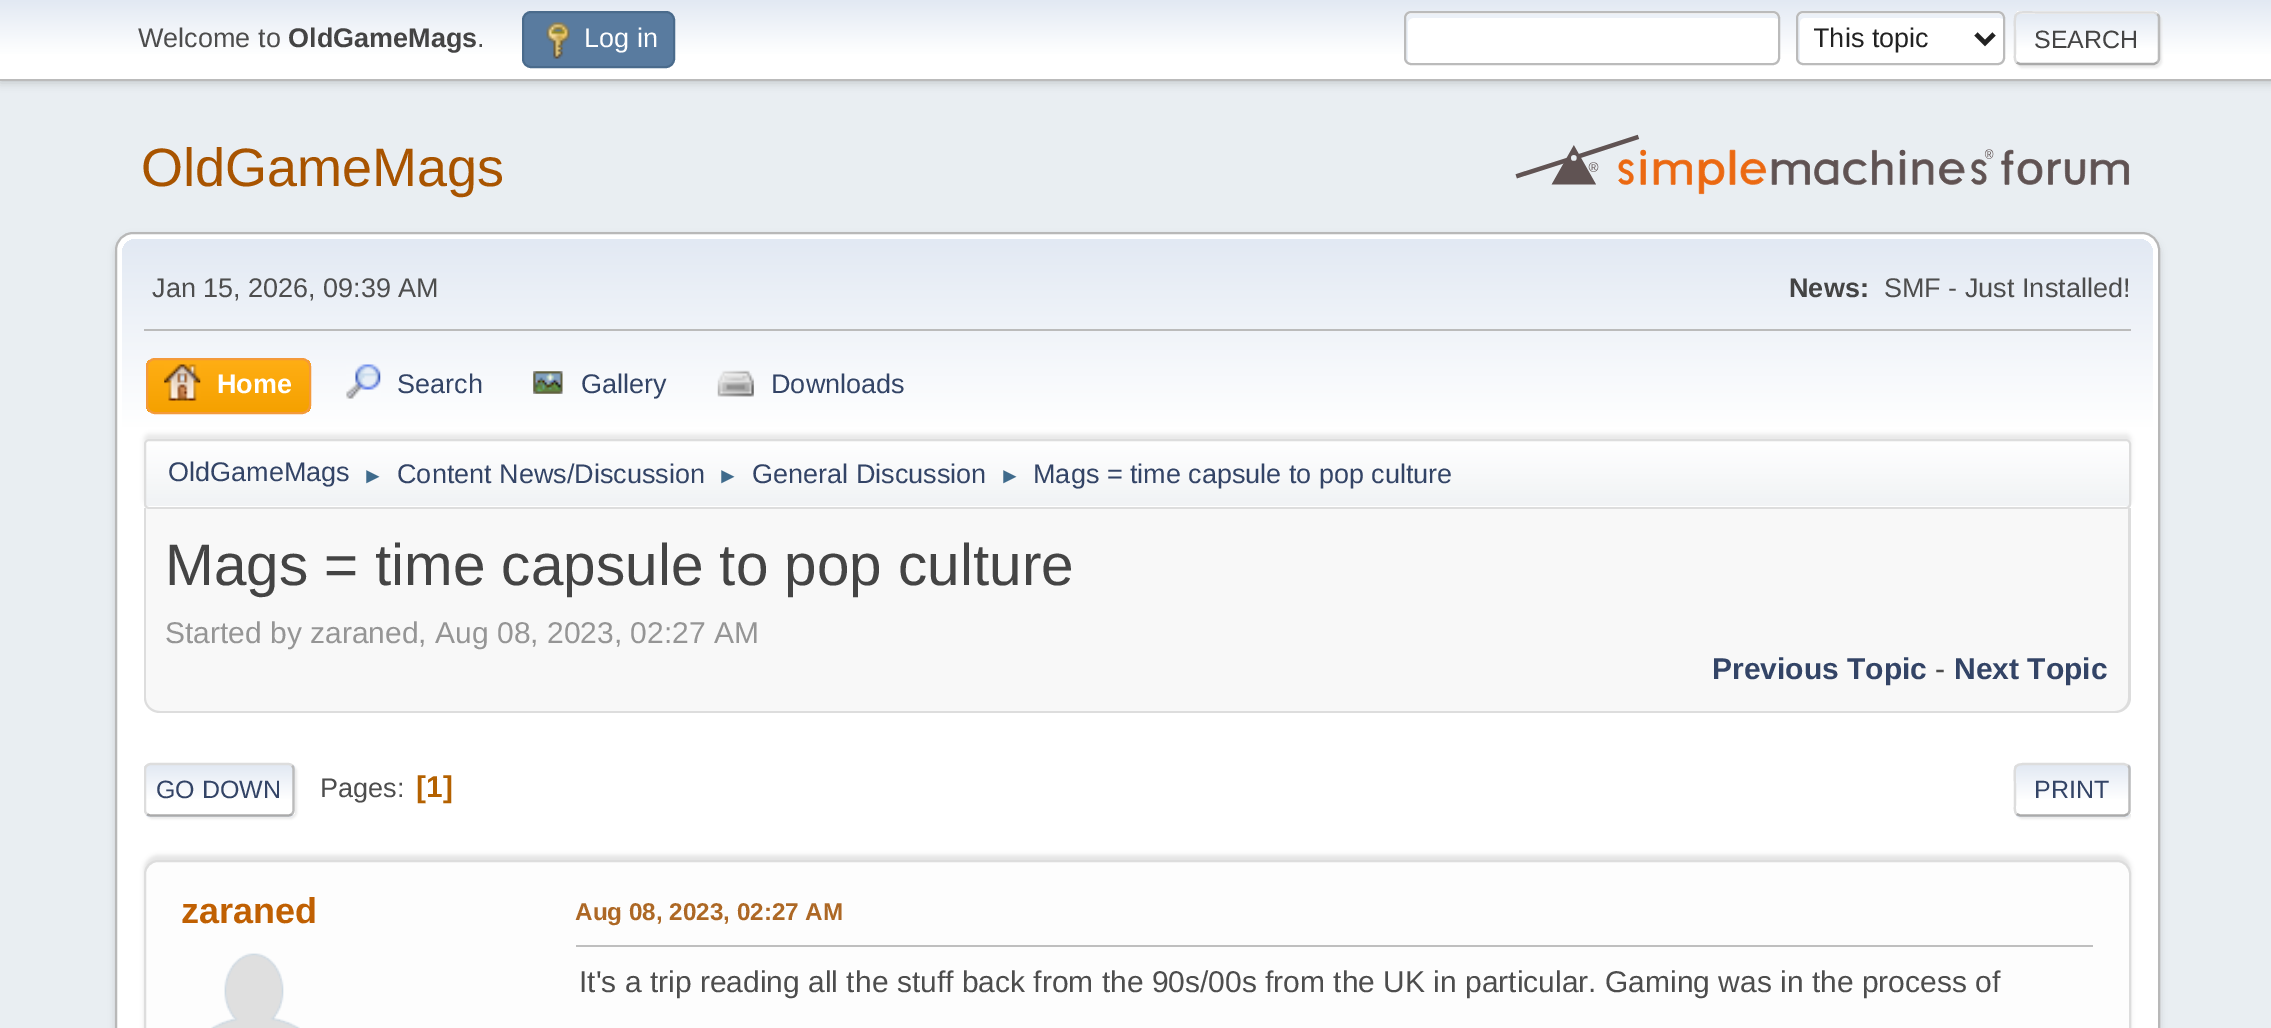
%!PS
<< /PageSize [2271 1028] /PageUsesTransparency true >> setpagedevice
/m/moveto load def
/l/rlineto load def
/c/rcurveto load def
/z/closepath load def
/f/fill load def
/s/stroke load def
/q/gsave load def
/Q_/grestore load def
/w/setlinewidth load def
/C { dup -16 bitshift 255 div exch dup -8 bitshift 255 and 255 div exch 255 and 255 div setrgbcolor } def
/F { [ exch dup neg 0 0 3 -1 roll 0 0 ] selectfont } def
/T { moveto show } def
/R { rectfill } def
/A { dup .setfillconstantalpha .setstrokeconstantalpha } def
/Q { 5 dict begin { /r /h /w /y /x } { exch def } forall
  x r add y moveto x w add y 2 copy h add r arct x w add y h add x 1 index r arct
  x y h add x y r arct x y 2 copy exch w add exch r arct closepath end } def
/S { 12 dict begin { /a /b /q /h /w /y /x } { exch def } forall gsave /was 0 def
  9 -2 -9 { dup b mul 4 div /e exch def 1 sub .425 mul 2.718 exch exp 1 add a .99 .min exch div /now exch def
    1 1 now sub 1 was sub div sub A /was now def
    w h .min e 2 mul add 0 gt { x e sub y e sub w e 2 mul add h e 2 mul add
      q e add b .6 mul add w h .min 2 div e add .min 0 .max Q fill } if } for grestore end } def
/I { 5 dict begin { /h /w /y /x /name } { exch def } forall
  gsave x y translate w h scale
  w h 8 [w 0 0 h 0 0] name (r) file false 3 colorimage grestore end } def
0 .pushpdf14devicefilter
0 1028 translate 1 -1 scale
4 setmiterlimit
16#E9EEF2 C
0 0 2271 1028 R
16#000000 C
0 2 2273 81 0 4.5 .16 S
q 0 0 m 2271 0 l 0 79 l -2271 0 l z clip newpath
<< /ShadingType 2 /ColorSpace /DeviceRGB /Coords [1136 0 1136 79] /Extend [true true] /Function << /FunctionType 3 /Domain [0 1] /Functions [<< /FunctionType 2 /Domain [0 1] /C0 [.886 .914 .953] /C1 [1 1 1] /N 1 >> << /FunctionType 2 /Domain [0 1] /C0 [1 1 1] /C1 [1 1 1] /N 1 >>] /Bounds [.7] /Encode [0 1 0 1] >> >> shfill Q_
16#BBBBBB C
0 79 2271 2 R
/LiberationSans-Regular 27 F
16#4D4D4D C
(Welcome to) 138 47 T
/LiberationSans-Bold 27 F
16#444444 C
(OldGameMags) 288 47 T
/LiberationSans-Regular 27 F
16#4D4D4D C
(.) 477 47 T
16#597B9F C
523 12 151 55 8 Q q f Q_
16#4A6B8C C
2 w
s
(1.rgb) 546 22 24 37 I
16#FFFFFF C
(Log in) 584 47 T
1404 11 376 54 7 Q f
16#ECF1F8 C
1413 18 m 362 0 l 3 1 l 0 -3 -2 -5 -5 -5 c -362 0 l -3 0 -5 2 -5 5 c 0 39 l 0 2 1 3 2 4 c 0 -40 l 0 -2 3 -4 5 -4 c z f
16#BBBBBB C
1405 12 374 52 6 Q s
16#FFFFFF C
1796 11 209 54 7 Q f
16#ECF1F8 C
1804 18 m 196 0 l 3 1 l 0 -3 -2 -5 -5 -5 c -195 0 l -3 0 -5 2 -5 5 c 0 39 l 0 2 1 3 2 4 c 0 -40 l 0 -2 2 -4 4 -4 c z f
16#BBBBBB C
1797 12 207 52 6 Q s
16#222222 C
4.5 w
1976 34 m 9 9 l 9 -9 l s
q
1814 20 148 36 rectclip
(This topic) 1813 47 T
Q_
16#DDDDDD C
2016 14 146 54 7 1 .57 S
q
2014 11 146 54 7 Q clip newpath
q 2014 11 m 146 0 l 0 3 l -146 0 l z clip newpath
<< /ShadingType 2 /ColorSpace /DeviceRGB /Coords [2087 -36 2087 14] /Extend [true true] /Function << /FunctionType 3 /Domain [0 1] /Functions [<< /FunctionType 2 /Domain [0 1] /C0 [.886 .914 .953] /C1 [1 1 1] /N 1 >> << /FunctionType 2 /Domain [0 1] /C0 [1 1 1] /C1 [1 1 1] /N 1 >>] /Bounds [.7] /Encode [0 1 0 1] >> >> shfill Q_
q 2014 14 m 146 0 l 0 49 l -146 0 l z clip newpath
<< /ShadingType 2 /ColorSpace /DeviceRGB /Coords [2087 13 2087 63] /Extend [true true] /Function << /FunctionType 3 /Domain [0 1] /Functions [<< /FunctionType 2 /Domain [0 1] /C0 [.886 .914 .953] /C1 [1 1 1] /N 1 >> << /FunctionType 2 /Domain [0 1] /C0 [1 1 1] /C1 [1 1 1] /N 1 >>] /Bounds [.7] /Encode [0 1 0 1] >> >> shfill Q_
Q_
16#BBBBBB C
2.2 w
2157 14 m 1.5 1 2 2.5 2 4 c 0 40.5 l 0 1.5 -.5 3 -2 4 c s
16#AAAAAA C
2157 62.5 m -3 1.5 l -134 0 l -3.5 -1.5 l s
16#DDDDDD C
2016.5 62.5 m -2.5 -2.5 -1.5 -7.5 -1.5 -10.5 c 0 -14 l 0 -30.5 -4.5 -25.5 27.5 -25.5 c 110.5 0 l 1.5 0 3 .5 4 1.5 c s
/LiberationSans-Regular 25 F
16#444444 C
(SEARCH) 2034 48 T
/LiberationSans-Regular 54 F
16#A85400 C
(OldGameMags) 141 186 T
(2.rgb) 1515 134 615 61 I
16#000000 C
115 236 2045 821 18 3.5 .14 S
16#FFFFFF C
116 233 2043 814 17 Q q f Q_
16#B8B8B8 C
2 w
s
q 136 239 m 2003 0 l 7.5 0 14 6.5 14 14 c 0 260 l -2031 0 l 0 -260 l 0 -7.5 6.5 -14 14 -14 c z clip newpath
<< /ShadingType 2 /ColorSpace /DeviceRGB /Coords [1137 238 1137 513] /Extend [true true] /Function << /FunctionType 3 /Domain [0 1] /Functions [<< /FunctionType 2 /Domain [0 1] /C0 [.886 .914 .953] /C1 [1 1 1] /N 1 >> << /FunctionType 2 /Domain [0 1] /C0 [1 1 1] /C1 [1 1 1] /N 1 >>] /Bounds [.7] /Encode [0 1 0 1] >> >> shfill Q_
16#BBBBBB C
144 329 1987 2 R
/LiberationSans-Regular 27 F
16#4D4D4D C
(Jan 15, 2026, 09:39 AM) 152 297 T
/LiberationSans-Bold 27 F
16#444444 C
(News:) 1789 297 T
/LiberationSans-Regular 27 F
16#4D4D4D C
(SMF - Just Installed!) 1884 297 T
q
146 358 165 56 9 Q clip newpath
q 146 360 m 165 0 l 0 52 l -165 0 l z clip newpath
<< /ShadingType 2 /ColorSpace /DeviceRGB /Coords [228 360 228 412] /Extend [true true] /Function << /FunctionType 2 /Domain [0 1] /C0 [1 .682 .078] /C1 [.961 .631 0] /N 1 >> >> shfill Q_
Q_
16#F49A3A C
147 359 163 54 8 Q s
(3.rgb) 164 364 37 37 I
/LiberationSans-Bold 27 F
16#FFFFFF C
(Home) 217 393 T
(4.rgb) 346 364 35 35 I
/LiberationSans-Regular 27 F
16#334466 C
(Search) 397 393 T
(5.rgb) 533 371 30 23 I
(Gallery) 581 393 T
(6.rgb) 717 370 37 27 I
(Downloads) 771 393 T
16#000000 C
144 434 1987 70 5 2 .08 S
16#FFFFFF C
144 439 1987 70 5 Q f
q
144 439 1987 70 5 Q clip newpath
q 144 441 m 1987 0 l 0 65 l -1987 0 l z clip newpath
<< /ShadingType 2 /ColorSpace /DeviceRGB /Coords [1137 441 1137 506] /Extend [true true] /Function << /FunctionType 3 /Domain [0 1] /Functions [<< /FunctionType 2 /Domain [0 1] /C0 [1 1 1] /C1 [.945 .953 .961] /N 1 >> << /FunctionType 2 /Domain [0 1] /C0 [.945 .953 .961] /C1 [.945 .953 .961] /N 1 >>] /Bounds [.95] /Encode [0 1 0 1] >> >> shfill Q_
Q_
16#DDDDDD C
145 440 1985 68 4 Q s
16#334466 C
(OldGameMags) 168 481 T
/LiberationSans-Regular 22 F
16#3F6B8C C
(►) 362 483 T
/LiberationSans-Regular 27 F
16#334466 C
(Content News/Discussion) 397 483 T
/LiberationSans-Regular 22 F
16#3F6B8C C
(►) 717 483 T
/LiberationSans-Regular 27 F
16#334466 C
(General Discussion) 752 483 T
/LiberationSans-Regular 22 F
16#3F6B8C C
(►) 999 483 T
/LiberationSans-Regular 27 F
16#334466 C
(Mags = time capsule to pop culture) 1033 483 T
16#F8F8F8 C
144 509 m 1987 0 l 0 188 l 0 9 -7 16 -16 16 c -1955 0 l -9 0 -16 -7 -16 -16 c z f
16#DDDDDD C
144 508 m 1987 0 l 0 190 l 0 8 -7 15 -16 15 c -1955 0 l -9 0 -16 -7 -16 -15 c z 146 508 m 1982 0 l 0 190 l 0 7 -6 13 -13 13 c -1955 0 l -8 0 -14 -6 -14 -13 c z eofill
/LiberationSans-Regular 58.5 F
16#444444 C
(Mags = time capsule to pop culture) 165 585 T
/LiberationSans-Regular 30 F
16#959595 C
(Started by zaraned, Aug 08, 2023, 02:27 AM) 165 643 T
/LiberationSans-Bold 30 F
16#334466 C
(Previous Topic) 1712 679 T
/LiberationSans-Regular 30 F
16#4D4D4D C
(-) 1935 679 T
/LiberationSans-Bold 30 F
16#334466 C
(Next Topic) 1954 679 T
16#DDDDDD C
146 765 151 54 7 1 .57 S
q
144 763 151 54 7 Q clip newpath
q 144 765 m 151 0 l 0 50 l -151 0 l z clip newpath
<< /ShadingType 2 /ColorSpace /DeviceRGB /Coords [219 765 219 815] /Extend [true true] /Function << /FunctionType 3 /Domain [0 1] /Functions [<< /FunctionType 2 /Domain [0 1] /C0 [.886 .914 .953] /C1 [1 1 1] /N 1 >> << /FunctionType 2 /Domain [0 1] /C0 [1 1 1] /C1 [1 1 1] /N 1 >>] /Bounds [.7] /Encode [0 1 0 1] >> >> shfill Q_
q 144 815 m 151 0 l 0 2 l -151 0 l z clip newpath
<< /ShadingType 2 /ColorSpace /DeviceRGB /Coords [219 815 219 864] /Extend [true true] /Function << /FunctionType 3 /Domain [0 1] /Functions [<< /FunctionType 2 /Domain [0 1] /C0 [.886 .914 .953] /C1 [1 1 1] /N 1 >> << /FunctionType 2 /Domain [0 1] /C0 [1 1 1] /C1 [1 1 1] /N 1 >>] /Bounds [.7] /Encode [0 1 0 1] >> >> shfill Q_
Q_
16#BBBBBB C
2.2 w
292 765.5 m 1 1 1.5 2.5 1.5 4 c 0 40.5 l 0 1.5 -.5 3 -1.5 4 c s
16#AAAAAA C
292 814 m -1 1 -2.5 1.5 -4 1.5 c -137 0 l -1.5 0 -3 -.5 -4 -1.5 c s
q
144 747 1987 86 rectclip
16#DDDDDD C
147 814 m -1.5 -1 -2 -2.5 -2 -4 c 0 -40.5 l 0 -1.5 .5 -3 2 -4 c 1 -1 2.5 -1.5 4 -1.5 c 137 0 l 1.5 0 3 .5 4 1.5 c s
Q_
/LiberationSans-Regular 25 F
16#334466 C
(GO DOWN) 156 798 T
/LiberationSans-Regular 27 F
16#4D4D4D C
(Pages:) 320 797 T
/LiberationSans-Bold 30 F
16#B46100 C
([1]) 416 797 T
q
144 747 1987 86 rectclip
16#DDDDDD C
2016 765 117 54 7 1 .57 S
Q_
16#FFFFFF C
2014 763 117 54 7 Q f
q
2014 763 117 54 7 Q clip newpath
q 2014 765 m 117 0 l 0 50 l -117 0 l z clip newpath
<< /ShadingType 2 /ColorSpace /DeviceRGB /Coords [2072 765 2072 815] /Extend [true true] /Function << /FunctionType 3 /Domain [0 1] /Functions [<< /FunctionType 2 /Domain [0 1] /C0 [.886 .914 .953] /C1 [1 1 1] /N 1 >> << /FunctionType 2 /Domain [0 1] /C0 [1 1 1] /C1 [1 1 1] /N 1 >>] /Bounds [.7] /Encode [0 1 0 1] >> >> shfill Q_
q 2014 815 m 117 0 l 0 2 l -117 0 l z clip newpath
<< /ShadingType 2 /ColorSpace /DeviceRGB /Coords [2072 815 2072 864] /Extend [true true] /Function << /FunctionType 3 /Domain [0 1] /Functions [<< /FunctionType 2 /Domain [0 1] /C0 [.886 .914 .953] /C1 [1 1 1] /N 1 >> << /FunctionType 2 /Domain [0 1] /C0 [1 1 1] /C1 [1 1 1] /N 1 >>] /Bounds [.7] /Encode [0 1 0 1] >> >> shfill Q_
Q_
16#BBBBBB C
2128 765.5 m 1 1 1.5 2.5 1.5 4 c 0 40.5 l 0 1.5 -.5 3 -1.5 4 c s
16#AAAAAA C
2128 814 m -3.5 1.5 l -104.5 0 l -3.5 -1.5 l s
16#DDDDDD C
2016.5 814 m -2.5 -2.5 -1.5 -7.5 -1.5 -11 c 0 -13 l 0 -28.5 -5 -26 23 -26 c 86 0 l 4 1.5 l s
/LiberationSans-Regular 25 F
16#334466 C
(PRINT) 2034 798 T
16#000000 C
144 855 1987 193 14 2 .1 S
16#FDFDFD C
145 861 1985 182 13 Q q f Q_
16#DDDDDD C
2 w
s
/LiberationSans-Bold 36 F
16#C06002 C
(zaraned) 181 923 T
(7.rgb) 211 953 89 75 I
/LiberationSans-Bold 24.25 F
16#AD6825 C
(Aug 08, 2023, 02:27 AM) 575 920 T
16#BFBFBF C
576 945 1517 2 R
/LiberationSans-Regular 30 F
16#4D4D4D C
(It's a trip reading all the stuff back from the 90s/00s from the UK in particular. Gaming was in the process of) 579 992 T
.poppdf14devicefilter showpage
